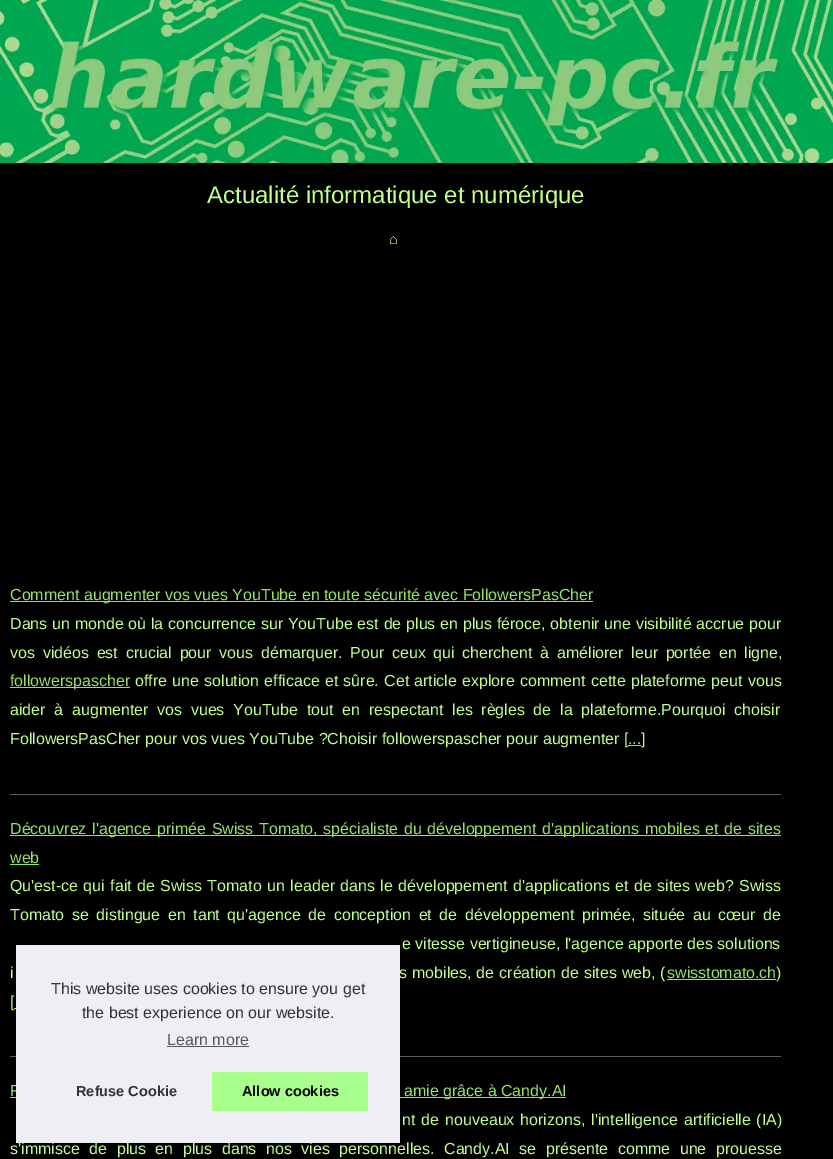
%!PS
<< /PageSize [833 1159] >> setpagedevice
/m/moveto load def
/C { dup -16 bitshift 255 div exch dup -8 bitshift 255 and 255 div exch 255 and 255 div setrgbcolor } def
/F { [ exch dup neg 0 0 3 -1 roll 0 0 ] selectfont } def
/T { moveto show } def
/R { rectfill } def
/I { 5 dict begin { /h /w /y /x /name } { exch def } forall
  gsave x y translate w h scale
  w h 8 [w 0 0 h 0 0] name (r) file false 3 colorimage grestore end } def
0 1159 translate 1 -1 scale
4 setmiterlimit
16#000000 C
0 0 833 1159 R
(1.rgb) 0 0 833 163 I
/LiberationSans-Regular 24 F
16#C0FF8A C
(Actualité informatique et numérique) 207 203 T
/LiberationSans-Regular 14.5 F
(⌂) 389 244 T
16#96E361 C
10 601 583 1 R
/LiberationSans-Regular 16 F
(Comment augmenter vos vues YouTube en toute sécurité avec FollowersPasCher) 10 600 T
16#C0FF8A C
10 629 m .3 0 32 (Dans un monde où la concurrence sur YouTube est de plus en plus féroce, obtenir une visibilité accrue pour) widthshow
10 658 m 3.25 0 32 (vos vidéos est crucial pour vous démarquer. Pour ceux qui cherchent à améliorer leur portée en ligne,) widthshow
16#96E361 C
10 687 120 1 R
(followerspascher) 10 686 T
16#C0FF8A C
135 686 m .75 0 32 (offre une solution efficace et sûre. Cet article explore comment cette plateforme peut vous) widthshow
10 715 m 4.25 0 32 (aider à augmenter vos vues YouTube tout en respectant les règles de la plateforme.Pourquoi choisir) widthshow
(FollowersPasCher pour vos vues YouTube ?Choisir followerspascher pour augmenter [) 10 744 T
16#96E361 C
(...) 628 744 T
628 745 13 1 R
16#C0FF8A C
(]) 641 744 T
16#5C5C5C C
10 794 771 1 R
16#96E361 C
10 835 771 1 R
10 834 m 1.25 0 32 (Découvrez l'agence primée Swiss Tomato, spécialiste du développement d'applications mobiles et de sites) widthshow
(web) 10 863 T
10 864 29 1 R
16#C0FF8A C
10 891 m 1 0 32 (Qu'est-ce qui fait de Swiss Tomato un leader dans le développement d'applications et de sites web? Swiss) widthshow
10 920 m 3.1 0 32 (Tomato se distingue en tant qu'agence de conception et de développement primée, située au cœur de) widthshow
(e vitesse vertigineuse, l'agence apporte des solutions) 402 949 T
10 978 m .5 0 32 (i) widthshow
399 978 m .5 0 32 (s mobiles, de création de sites web, \() widthshow
16#96E361 C
(swisstomato.ch) 667 978 T
667 979 109 1 R
16#C0FF8A C
(\)) 776 978 T
([) 10 1007 T
16#96E361 C
14 1008 2 1 R
16#5C5C5C C
10 1056 771 1 R
16#96E361 C
(F) 10 1096 T
10 1097 556 1 R
(amie grâce à Candy.AI) 404 1096 T
16#C0FF8A C
402 1125 m 1.5 0 32 (nt de nouveaux horizons, l'intelligence artificielle \(IA\)) widthshow
10 1154 m 5.1 0 32 (s'immisce de plus en plus dans nos vies personnelles. Candy.AI se présente comme une prouesse) widthshow
16#EDEFF5 C
16 945 384 198 R
16#333333 C
(This website uses cookies to ensure you get) 51 994 T
(the best experience on our website.) 82 1018 T
16#58595A C
(Learn more) 167 1045 T
167 1046 82 1 R
/LiberationSans-Bold 14.5 F
16#333333 C
(Refuse Cookie) 76 1096 T
16#A8FF8C C
212 1072 156 39 R
16#000000 C
(Allow cookies) 242 1096 T
showpage
